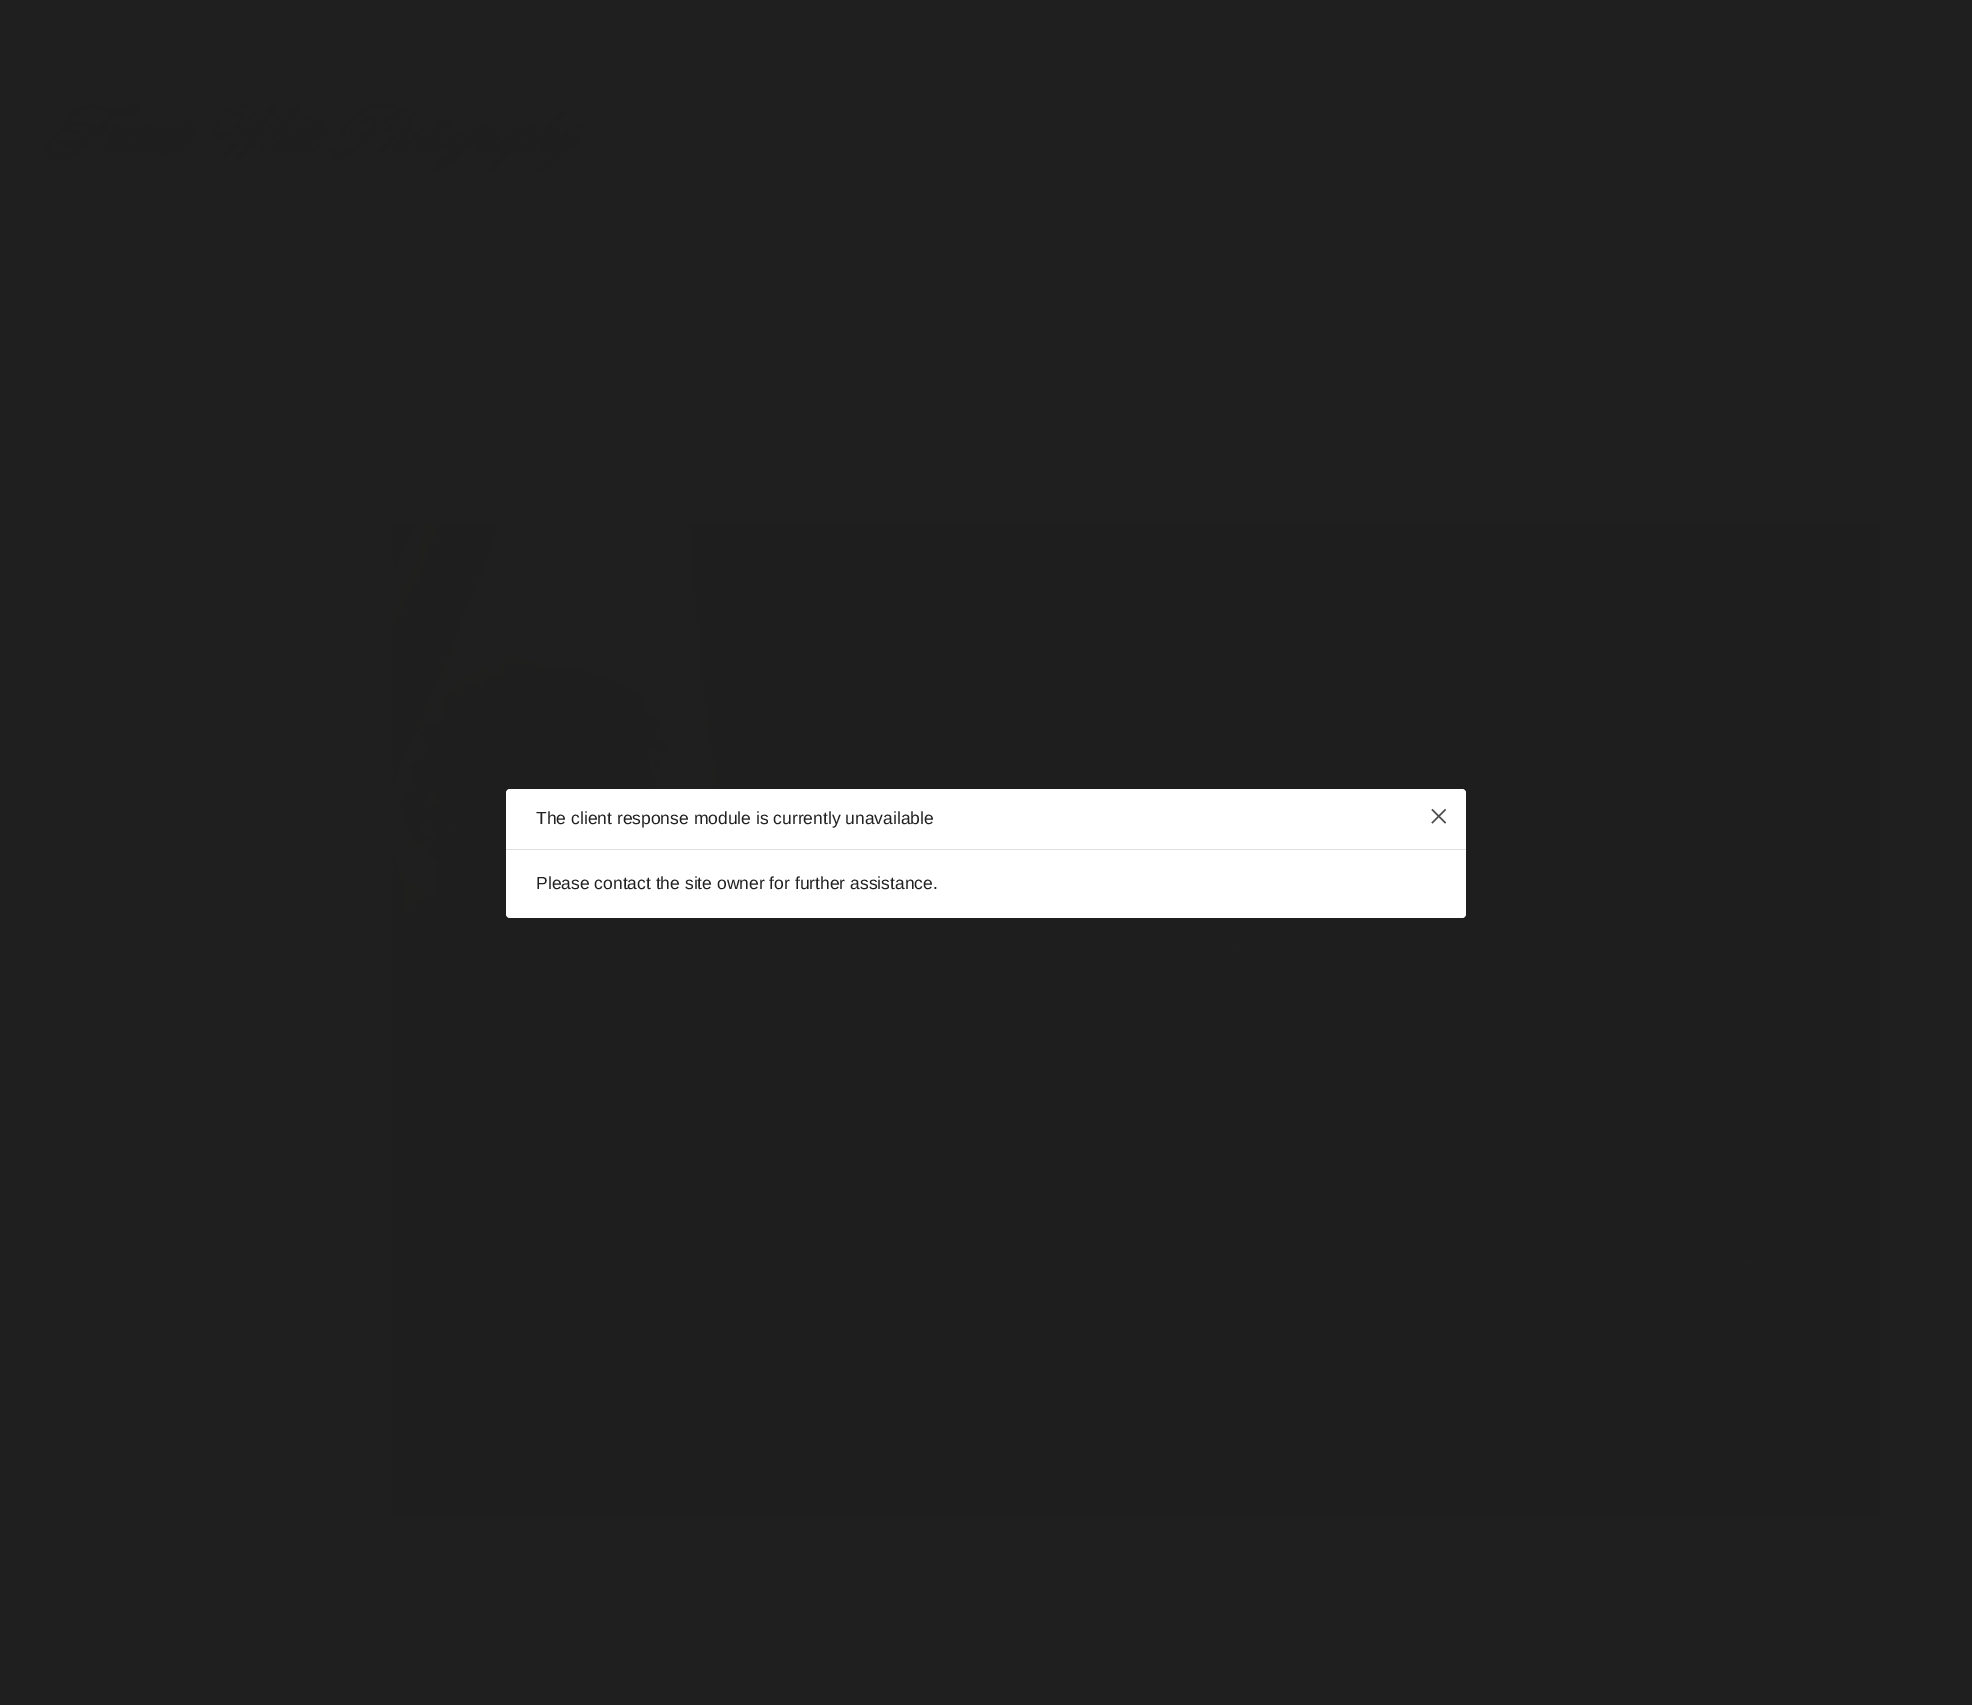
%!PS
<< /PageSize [1972 1705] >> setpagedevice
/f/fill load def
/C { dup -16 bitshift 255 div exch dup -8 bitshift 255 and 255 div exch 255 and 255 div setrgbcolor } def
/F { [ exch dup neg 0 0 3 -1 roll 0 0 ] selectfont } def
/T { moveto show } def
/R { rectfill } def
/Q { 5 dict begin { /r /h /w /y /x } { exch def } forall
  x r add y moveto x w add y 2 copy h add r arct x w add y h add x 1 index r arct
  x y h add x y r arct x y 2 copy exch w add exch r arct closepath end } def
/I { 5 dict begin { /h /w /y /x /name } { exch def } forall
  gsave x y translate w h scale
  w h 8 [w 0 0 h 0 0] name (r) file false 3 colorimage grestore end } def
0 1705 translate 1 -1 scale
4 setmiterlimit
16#1F1F1F C
0 0 1972 1705 R
(1.rgb) 45 103 541 71 I
(2.rgb) 393 523 1486 991 I
16#FFFFFF C
506 789 960 129 4 Q f
16#E0E0E0 C
506 849 960 1 R
/LiberationSans-Regular 17.5 F
16#212121 C
(The client response module is currently unavailable) 536 824 T
(Please contact the site owner for further assistance.) 536 889 T
(3.rgb) 1431 808 16 16 I
showpage
